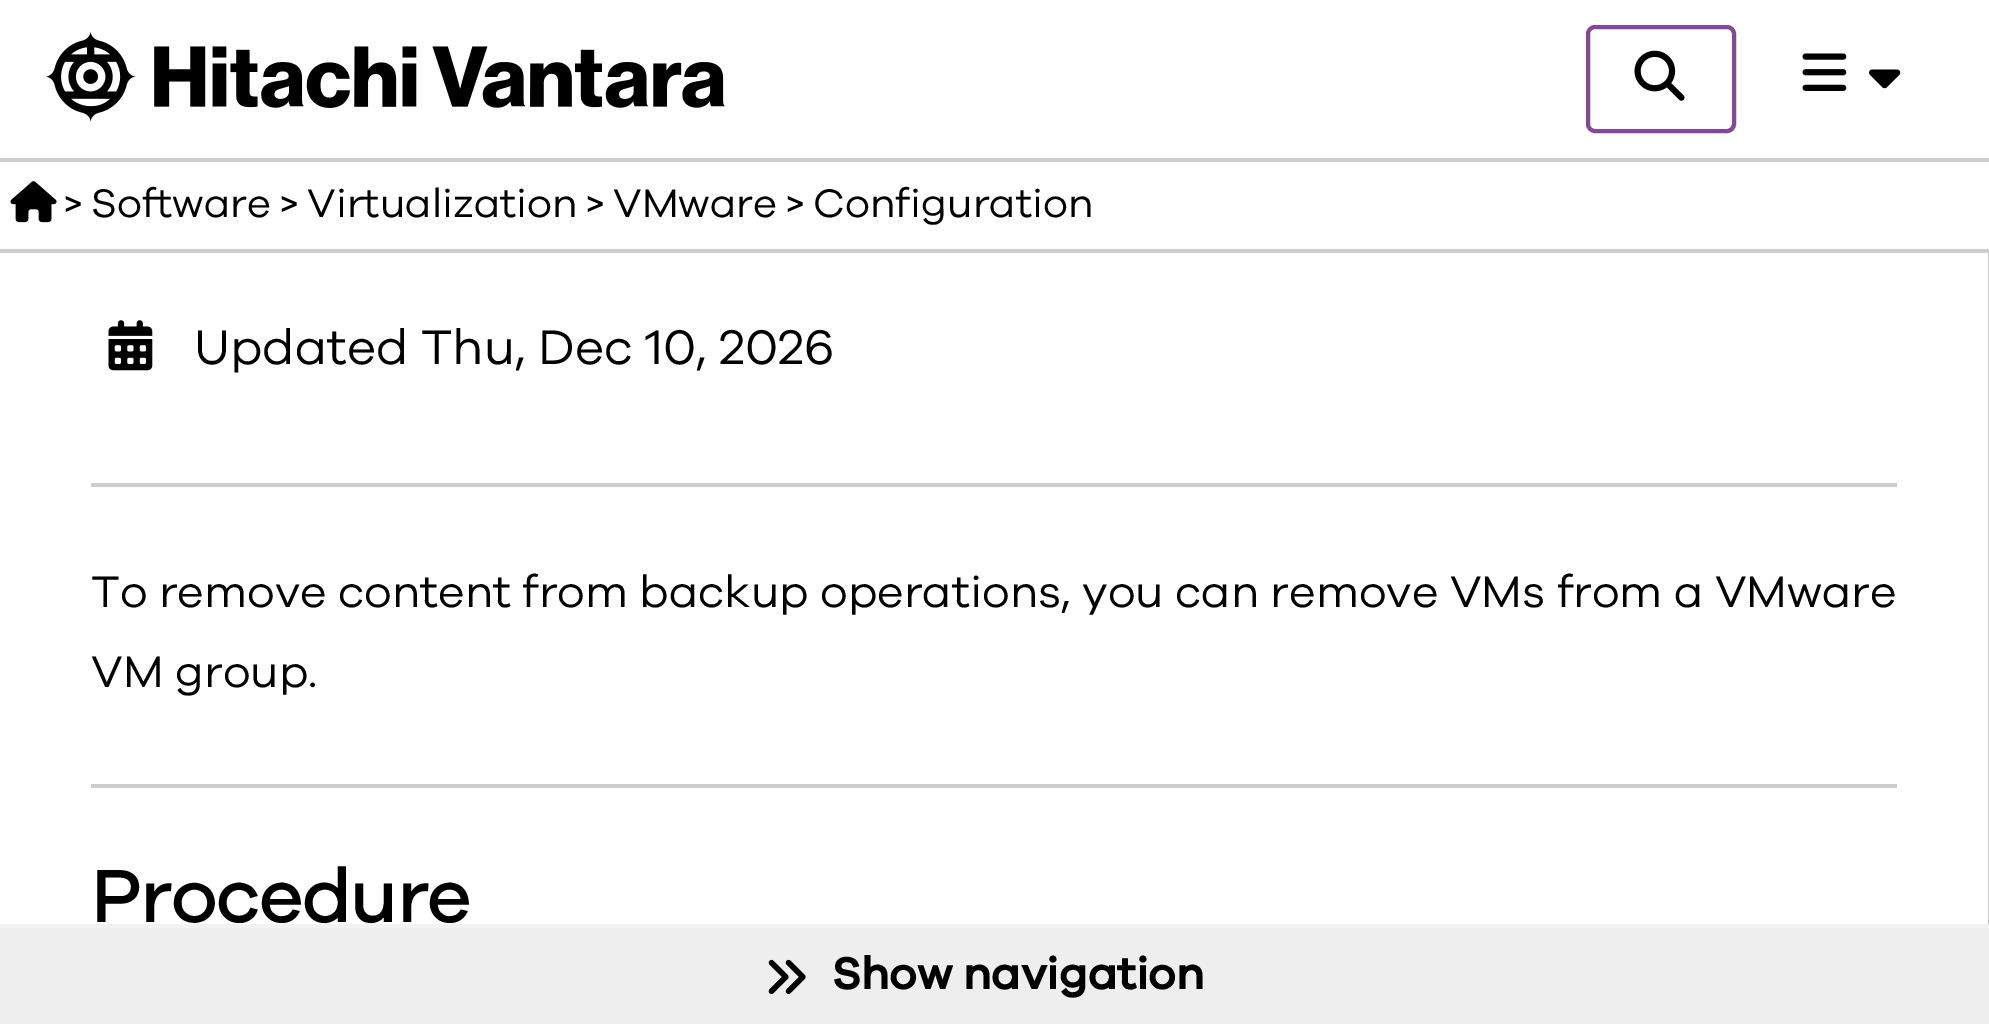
%!PS
<< /PageSize [1989 1024] >> setpagedevice
/m/moveto load def
/s/stroke load def
/w/setlinewidth load def
/C { dup -16 bitshift 255 div exch dup -8 bitshift 255 and 255 div exch 255 and 255 div setrgbcolor } def
/F { [ exch dup neg 0 0 3 -1 roll 0 0 ] selectfont } def
/T { moveto show } def
/R { rectfill } def
/Q { 5 dict begin { /r /h /w /y /x } { exch def } forall
  x r add y moveto x w add y 2 copy h add r arct x w add y h add x 1 index r arct
  x y h add x y r arct x y 2 copy exch w add exch r arct closepath end } def
/I { 5 dict begin { /h /w /y /x /name } { exch def } forall
  gsave x y translate w h scale
  w h 8 [w 0 0 h 0 0] name (r) file false 3 colorimage grestore end } def
0 1024 translate 1 -1 scale
4 setmiterlimit
16#FFFFFF C
0 0 1989 1024 R
16#CCCCCC C
0 158 1989 4 R
(1.rgb) 46 32 679 90 I
16#844896 C
4 w
1588 27 146 104 7 Q s
(2.rgb) 1634 50 51 51 I
(3.rgb) 1802 53 45 38 I
(4.rgb) 1869 69 32 20 I
16#CCCCCC C
1988 253 1 671 R
0 249 1989 4 R
(5.rgb) 10 181 47 42 I
/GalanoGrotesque-Regular 41 F
16#000000 C
(>) 64 217 T
(Software) 91 217 T
(>) 280 217 T
(Virtualization) 307 217 T
(>) 586 217 T
(VMware) 613 217 T
(>) 786 217 T
(Configuration) 813 217 T
(6.rgb) 108 320 45 51 I
/GalanoGrotesque-Regular 50 F
(Updated Thu, Dec 10, 2026) 194 364 T
16#CCCCCC C
91 483 1806 4 R
/GalanoGrotesque-Regular 45.5 F
16#000000 C
(To remove content from backup operations, you can remove VMs from a VMware) 91 607 T
(VM group.) 91 687 T
16#CCCCCC C
91 784 1806 4 R
/GalanoGrotesque-Medium 77.5 F
16#000000 C
91 922 m -1.75 0 (Procedure) ashow
16#F2F2F2 C
0 924 1989 4 R
16#EEEEEE C
0 928 1989 96 R
(7.rgb) 768 959 38 35 I
/GalanoGrotesque-Bold 45.5 F
16#000000 C
(Show navigation) 832 989 T
showpage
